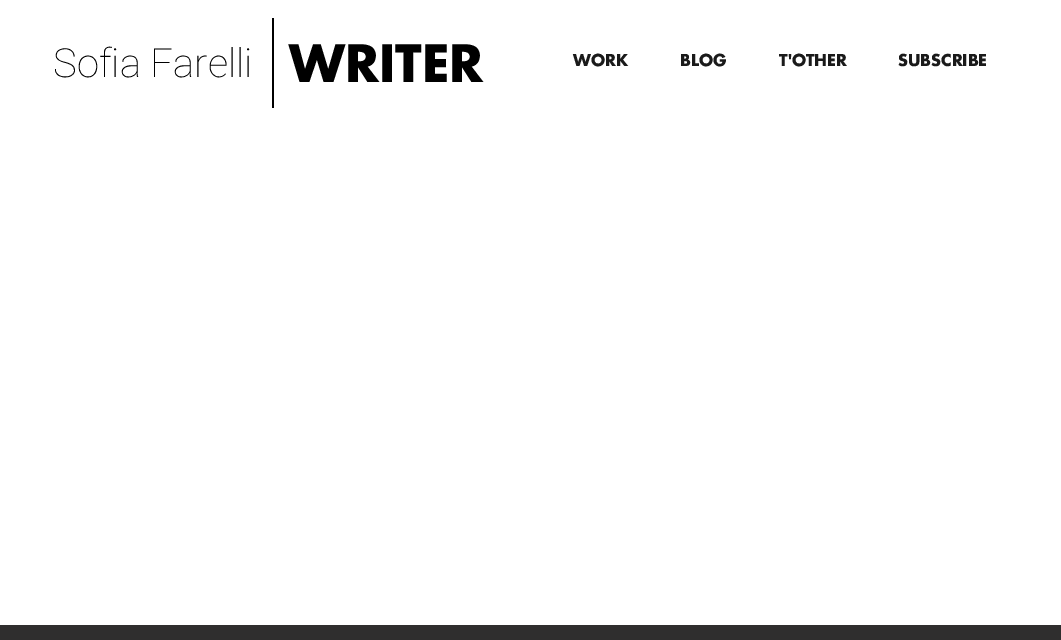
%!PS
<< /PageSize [1061 640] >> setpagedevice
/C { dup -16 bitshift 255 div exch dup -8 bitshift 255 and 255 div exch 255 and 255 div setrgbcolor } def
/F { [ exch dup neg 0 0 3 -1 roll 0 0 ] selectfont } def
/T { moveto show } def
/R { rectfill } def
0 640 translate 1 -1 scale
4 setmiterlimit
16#FFFFFF C
0 0 1061 640 R
/Roboto-Thin 40 F
16#000000 C
(Sofia Farelli) 53 77 T
272 18 2 90 R
/Futura-Bold 50 F
(WRITER) 289 82 T
/Futura-Bold 16 F
16#1A1A1A C
(WORK) 573 66 T
(BLOG) 680 66 T
(T'OTHER) 779 66 T
(SUBSCRIBE) 898 66 T
16#2F2E2E C
0 625 1061 15 R
showpage
